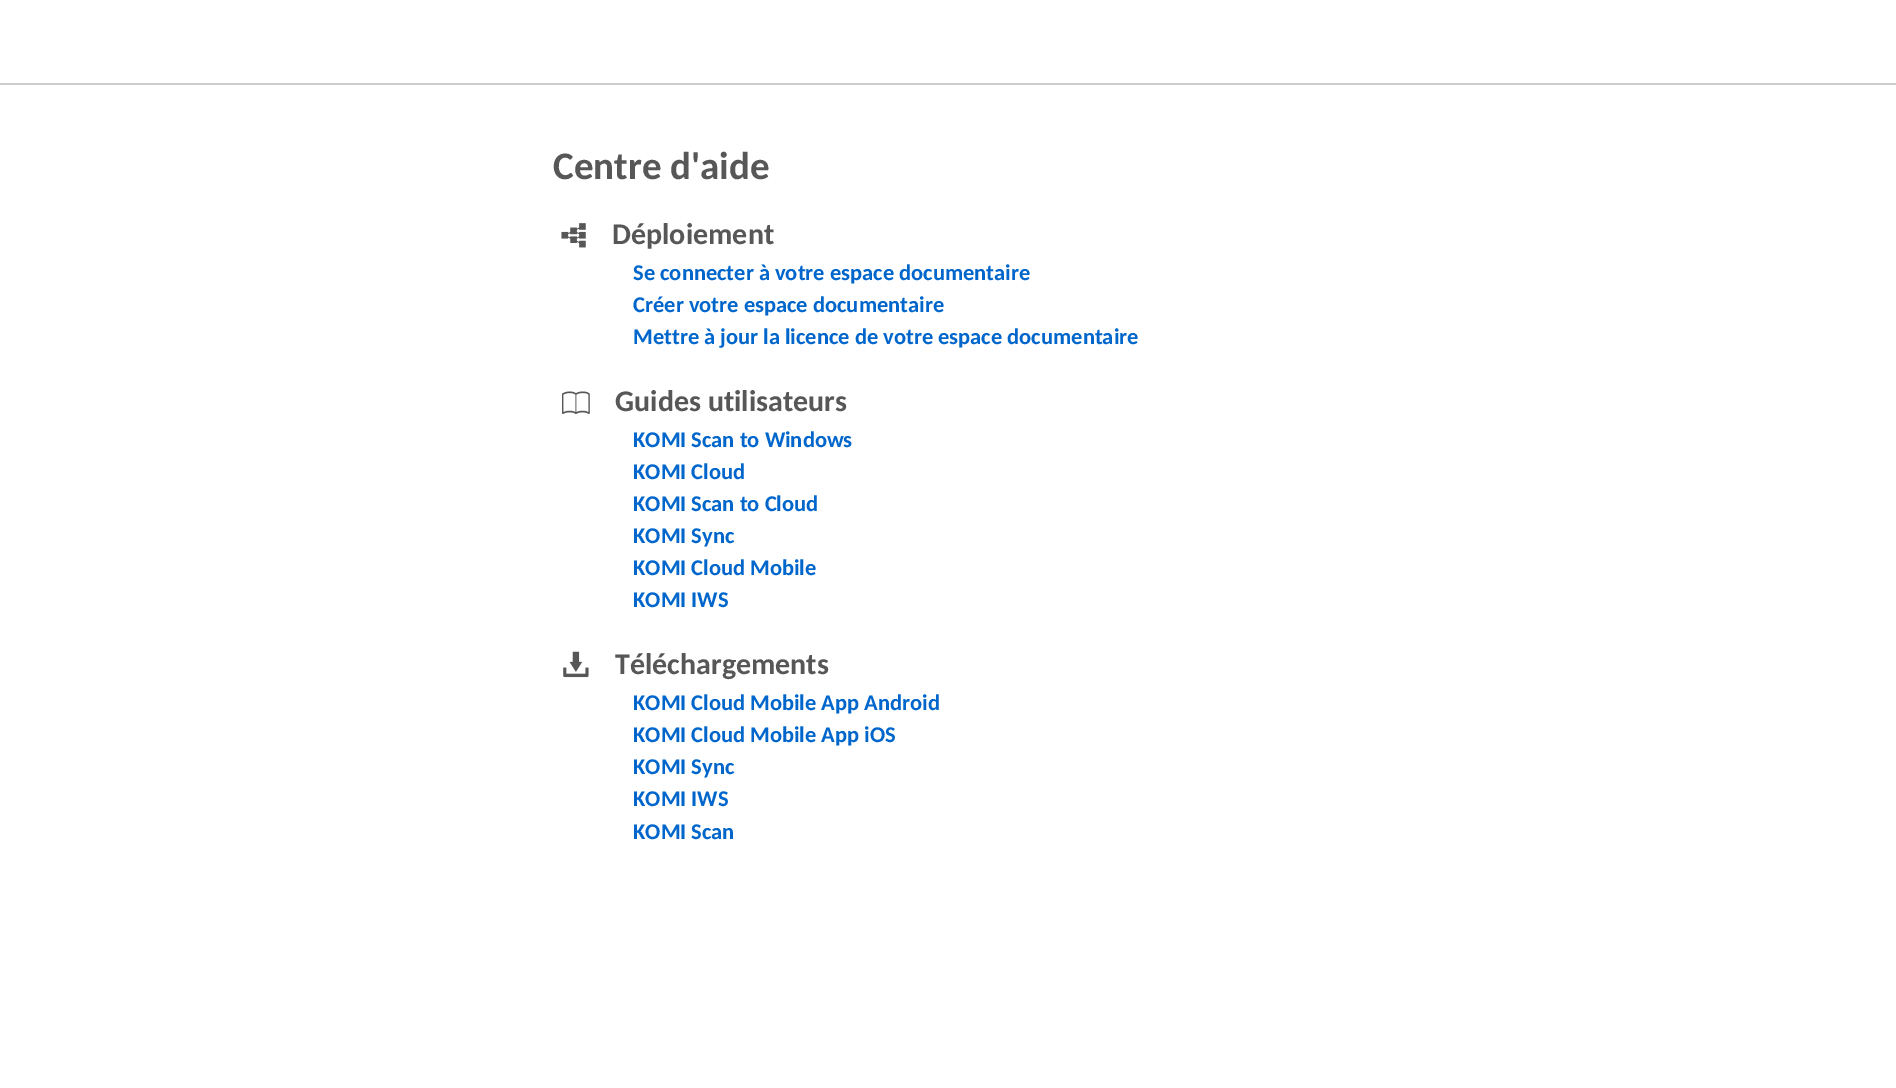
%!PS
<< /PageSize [1896 1088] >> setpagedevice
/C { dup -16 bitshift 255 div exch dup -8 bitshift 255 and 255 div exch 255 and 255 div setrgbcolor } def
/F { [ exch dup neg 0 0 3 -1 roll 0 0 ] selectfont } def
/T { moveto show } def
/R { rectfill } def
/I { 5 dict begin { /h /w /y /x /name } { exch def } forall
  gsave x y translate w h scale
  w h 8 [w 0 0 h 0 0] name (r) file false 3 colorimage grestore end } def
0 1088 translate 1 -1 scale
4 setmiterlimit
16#FFFFFF C
0 0 1896 1088 R
16#CCCCCC C
0 83 1896 2 R
/Carlito-Bold 39 F
16#575757 C
(Centre d'aide) 553 179 T
(1.rgb) 561 223 25 25 I
/Carlito-Bold 30 F
(Déploiement) 612 244 T
/Carlito-Bold 22.5 F
16#0066CC C
(Se connecter à votre espace documentaire) 633 280 T
(Créer votre espace documentaire) 633 312 T
(Mettre à jour la licence de votre espace documentaire) 633 344 T
(2.rgb) 562 391 28 24 I
/Carlito-Bold 30 F
16#575757 C
(Guides utilisateurs) 615 411 T
/Carlito-Bold 22.5 F
16#0066CC C
(KOMI Scan to Windows) 633 447 T
(KOMI Cloud) 633 479 T
(KOMI Scan to Cloud) 633 511 T
(KOMI Sync) 633 543 T
(KOMI Cloud Mobile) 633 575 T
(KOMI IWS) 633 607 T
(3.rgb) 563 651 26 27 I
/Carlito-Bold 30 F
16#575757 C
(Téléchargements) 615 674 T
/Carlito-Bold 22.5 F
16#0066CC C
(KOMI Cloud Mobile App Android) 633 710 T
(KOMI Cloud Mobile App iOS) 633 742 T
(KOMI Sync) 633 774 T
(KOMI IWS) 633 806 T
(KOMI Scan) 633 839 T
showpage
